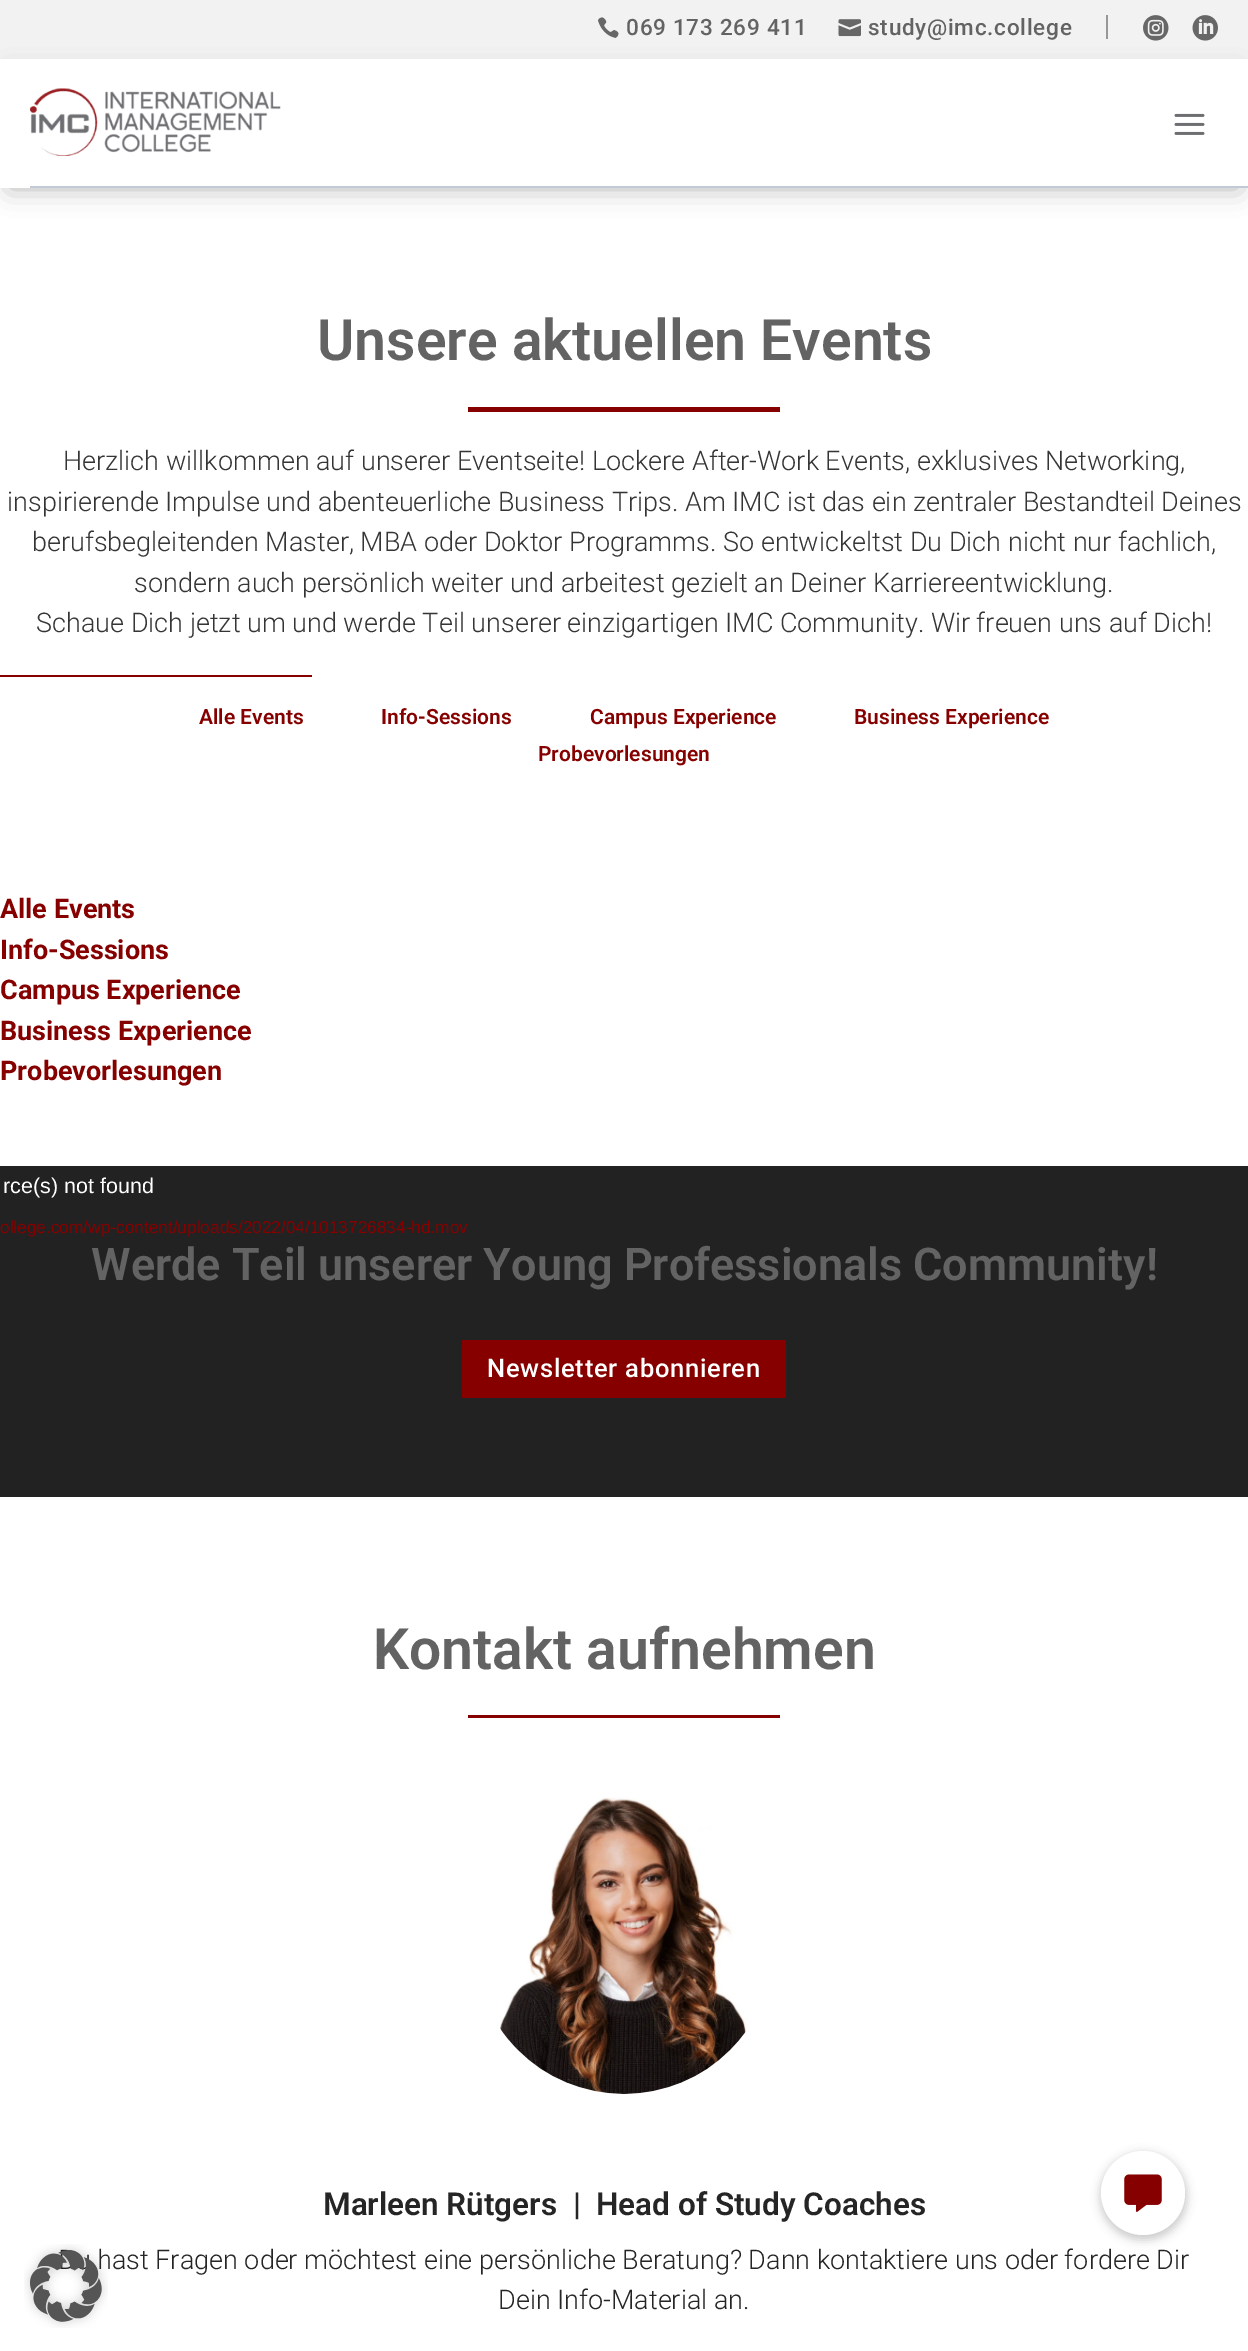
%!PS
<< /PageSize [1248 2351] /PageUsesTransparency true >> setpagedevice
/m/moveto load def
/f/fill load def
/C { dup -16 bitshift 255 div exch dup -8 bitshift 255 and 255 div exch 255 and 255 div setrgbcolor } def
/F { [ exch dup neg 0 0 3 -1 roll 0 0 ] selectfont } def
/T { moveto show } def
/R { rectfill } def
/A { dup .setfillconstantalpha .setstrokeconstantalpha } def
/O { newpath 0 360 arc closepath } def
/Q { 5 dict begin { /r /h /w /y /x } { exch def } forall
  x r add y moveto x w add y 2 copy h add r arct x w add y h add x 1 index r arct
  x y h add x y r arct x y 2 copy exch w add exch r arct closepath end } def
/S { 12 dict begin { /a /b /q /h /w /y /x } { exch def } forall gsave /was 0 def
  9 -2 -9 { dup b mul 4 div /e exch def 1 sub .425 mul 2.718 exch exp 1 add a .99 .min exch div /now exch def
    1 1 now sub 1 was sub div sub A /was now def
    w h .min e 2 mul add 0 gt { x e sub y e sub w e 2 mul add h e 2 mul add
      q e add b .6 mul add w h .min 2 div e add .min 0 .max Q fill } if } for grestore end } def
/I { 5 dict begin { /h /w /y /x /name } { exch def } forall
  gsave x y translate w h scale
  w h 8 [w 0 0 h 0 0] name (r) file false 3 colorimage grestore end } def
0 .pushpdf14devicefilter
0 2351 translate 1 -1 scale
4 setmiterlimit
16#FFFFFF C
0 0 1248 2351 R
16#F2F2F2 C
0 0 1248 59 R
(1.rgb) 598 17 21 21 I
/Roboto-Medium 22.5 F
16#636363 C
626 35 m .75 0 (069 173 269 411) ashow
(2.rgb) 838 19 23 18 I
868 35 m .75 0 (study@imc.college) ashow
16#989898 C
1106 15 2 24 R
(3.rgb) 1143 15 26 26 I
(4.rgb) 1192 15 26 26 I
16#000000 C
9 77 1230 111 0 13.5 .3 S
16#FFFFFF C
0 59 1248 129 R
16#C2CAD6 C
30 186 1218 2 R
(5.rgb) 30 88 251 68 I
(6.rgb) 1174 113 31 22 I
/Roboto-SemiBold 57 F
16#636363 C
(Unsere aktuellen Events) 317 360 T
16#860000 C
468 407 312 5 R
/Roboto-Light 27 F
16#353535 C
(Herzlich willkommen auf unserer Eventseite! Lockere After-Work Events, exklusives Networking,) 63 470 T
(inspirierende Impulse und abenteuerliche Business Trips. Am IMC ist das ein zentraler Bestandteil Deines) 7 511 T
(berufsbegleitenden Master, MBA oder Doktor Programms. So entwickeltst Du Dich nicht nur fachlich,) 32 551 T
(sondern auch persönlich weiter und arbeitest gezielt an Deiner Karriereentwicklung.) 134 592 T
(Schaue Dich jetzt um und werde Teil unserer einzigartigen IMC Community. Wir freuen uns auf Dich!) 36 632 T
16#860000 C
0 675 312 2 R
/Roboto-SemiBold 21 F
(Alle Events) 199 724 T
(Info-Sessions) 381 724 T
(Campus Experience) 590 724 T
(Business Experience) 854 724 T
(Probevorlesungen) 538 761 T
/Roboto-Bold 27 F
(Alle Events) 0 918 T
(Info-Sessions) 0 959 T
(Campus Experience) 0 999 T
(Business Experience) 0 1040 T
(Probevorlesungen) 0 1080 T
16#222222 C
0 1166 1248 331 R
/LiberationSans-Regular 21.5 F
16#FFFFFF C
(rce\(s\) not found) 3 1193 T
/LiberationSans-Regular 17.25 F
16#860000 C
(ollege.com/wp-content/uploads/2022/04/1013726834-hd.mov) 0 1233 T
/Roboto-SemiBold 45 F
16#636363 C
(Werde Teil unserer Young Professionals Community!) 91 1280 T
16#860000 C
462 1340 324 58 R
/Roboto-Medium 25.5 F
16#FFFFFF C
487 1377 m .75 0 (Newsletter abonnieren) ashow
/Roboto-SemiBold 57 F
16#636363 C
(Kontakt aufnehmen) 373 1669 T
16#860000 C
468 1715 312 3 R
(7.rgb) 499 1797 249 297 I
/Roboto-SemiBold 31.5 F
16#252525 C
(Marleen Rütgers  |  Head of Study Coaches) 323 2215 T
/Roboto-Light 27 F
(hast Fragen oder möchtest eine persönliche Beratung? Dann kontaktiere uns oder fordere Dir) 97 2269 T
(Dein Info-Material an.) 498 2309 T
16#000000 C
1100 2153 87 87 43.5 4.5 .2 S
16#FFFFFF C
1143 2193 42 O f
(8.rgb) 1124 2174 38 38 I
(9.rgb) 24 2244 84 84 I
.poppdf14devicefilter showpage
